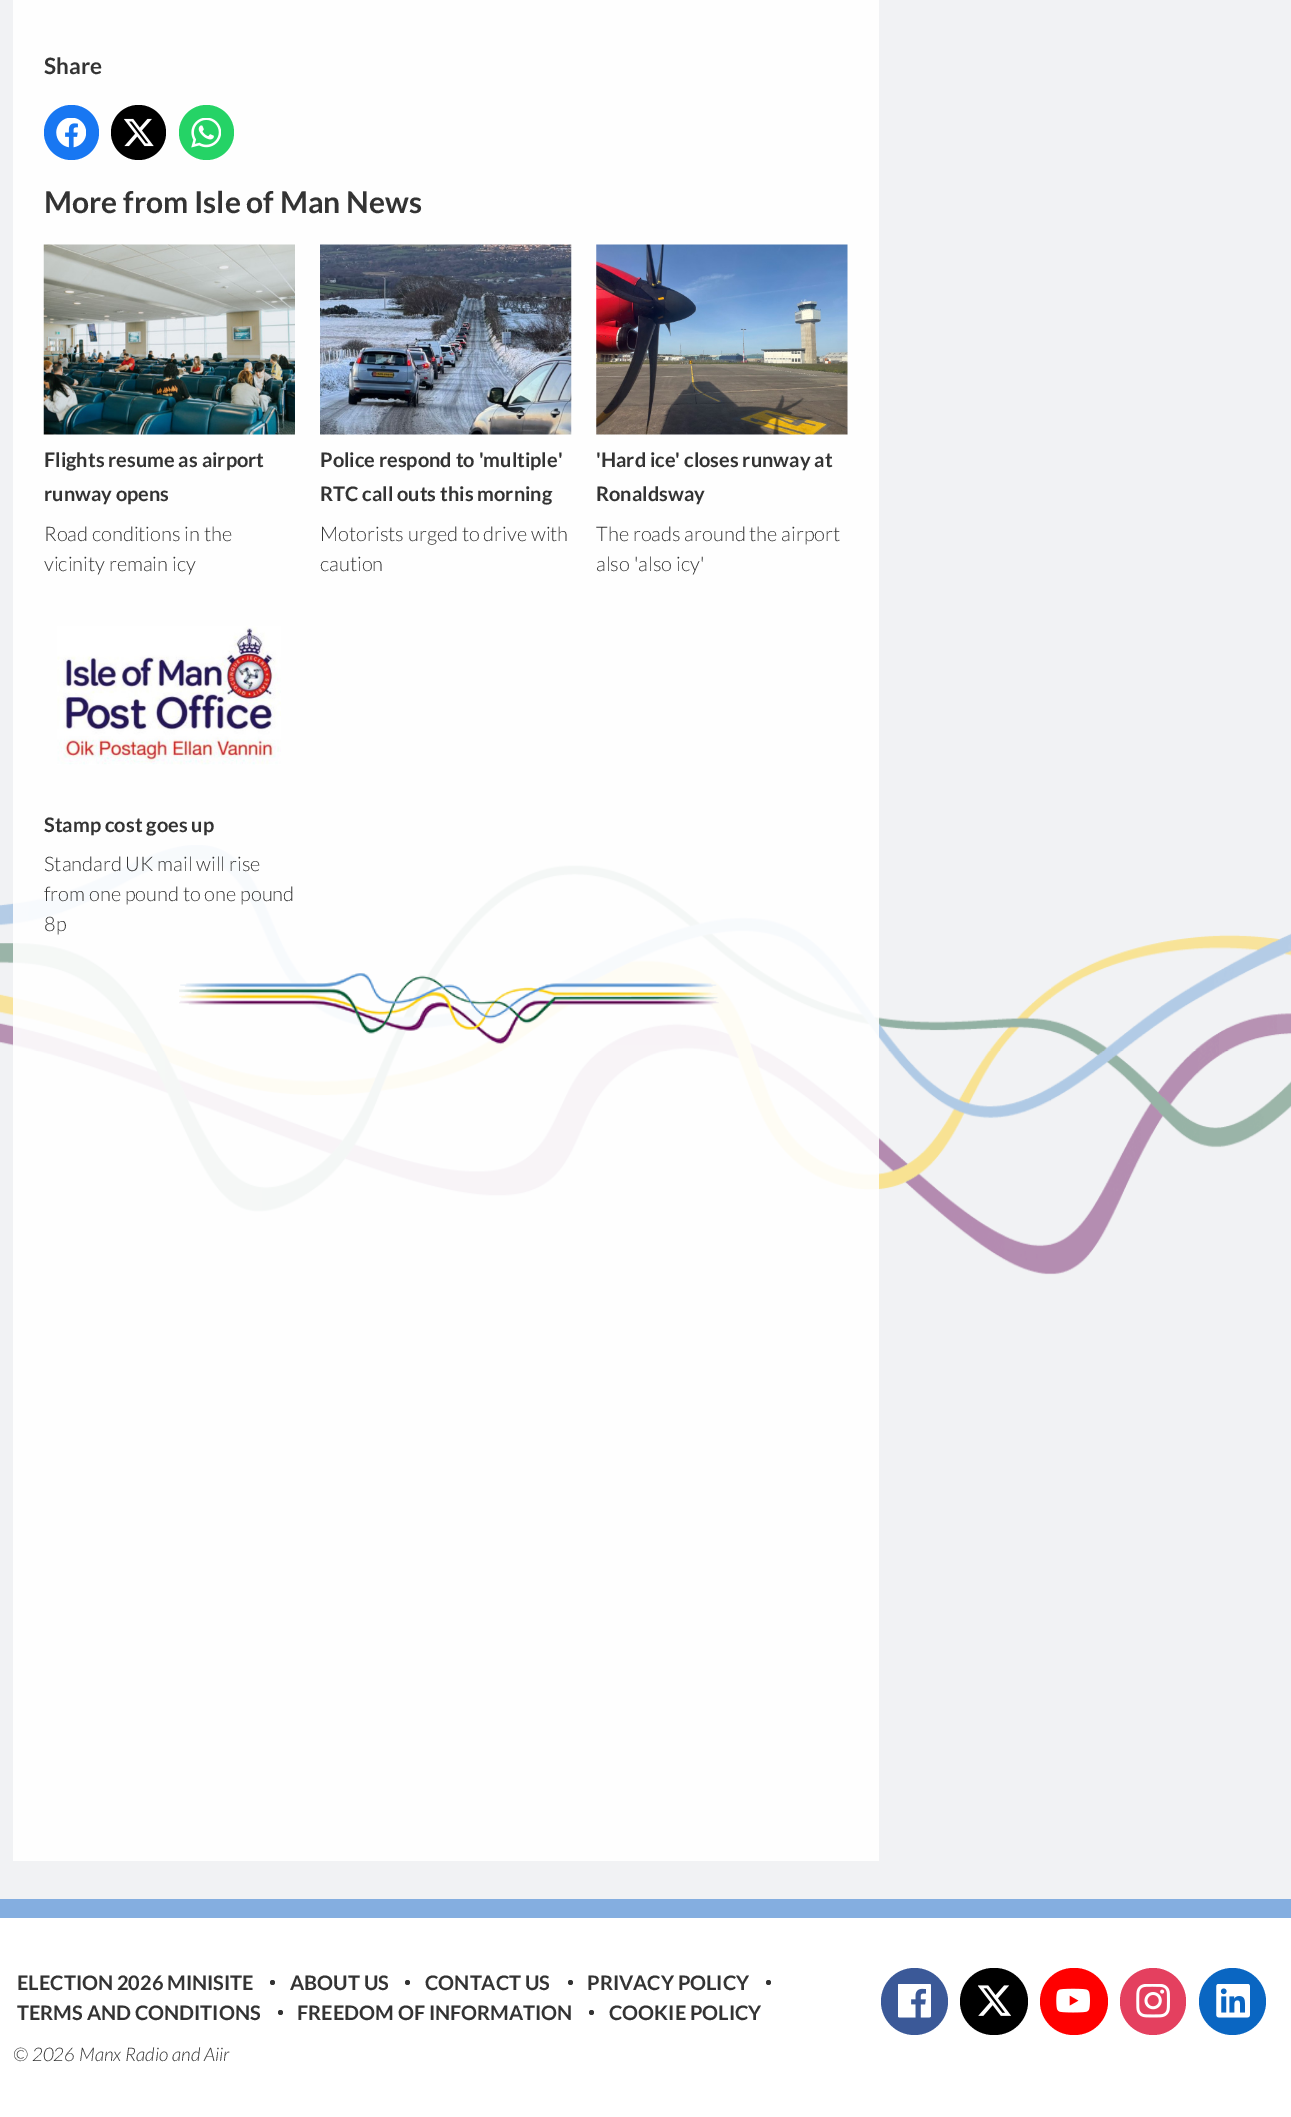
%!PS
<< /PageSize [1291 2117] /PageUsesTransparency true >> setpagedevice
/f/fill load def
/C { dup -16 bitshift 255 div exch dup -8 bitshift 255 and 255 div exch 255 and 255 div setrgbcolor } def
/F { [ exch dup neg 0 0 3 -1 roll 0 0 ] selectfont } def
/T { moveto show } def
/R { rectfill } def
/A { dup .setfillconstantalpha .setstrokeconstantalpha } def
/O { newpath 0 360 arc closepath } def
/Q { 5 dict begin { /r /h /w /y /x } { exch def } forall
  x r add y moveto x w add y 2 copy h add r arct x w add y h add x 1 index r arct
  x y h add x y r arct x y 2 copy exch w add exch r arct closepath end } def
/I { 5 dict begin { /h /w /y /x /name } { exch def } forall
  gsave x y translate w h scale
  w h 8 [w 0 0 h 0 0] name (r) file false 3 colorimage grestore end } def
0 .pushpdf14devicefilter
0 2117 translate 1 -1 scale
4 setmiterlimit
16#FFFFFF C
0 0 1291 2117 R
16#F1F2F4 C
0 0 1291 1899 R
(1.rgb) 0 845 1291 430 I
0.9 A
16#FFFFFF C
13 0 866 1861 R
/Lato-Bold 22.5 F
1 A
16#333333 C
(Share) 44 74 T
16#1877F2 C
71.5 132.5 27.5 O f
(2.rgb) 56 118 30 30 I
16#000000 C
138.5 132.5 27.5 O f
(3.rgb) 124 118 30 29 I
16#25D366 C
206.5 132.5 27.5 O f
(4.rgb) 191 118 30 30 I
/Lato-Bold 30 F
16#333333 C
(More from Isle of Man News) 44 213 T
(5.rgb) 43 244 252 191 I
/Lato-Bold 20 F
(Flights resume as airport) 44 467 T
(runway opens) 44 501 T
/Lato-Light 20 F
(Road conditions in the) 44 541 T
(vicinity remain icy) 44 571 T
(6.rgb) 320 244 252 191 I
/Lato-Bold 20 F
(Police respond to 'multiple') 320 467 T
(RTC call outs this morning) 320 501 T
/Lato-Light 20 F
(Motorists urged to drive with) 320 541 T
(caution) 320 571 T
(7.rgb) 596 244 252 191 I
/Lato-Bold 20 F
('Hard ice' closes runway at) 596 467 T
(Ronaldsway) 596 501 T
/Lato-Light 20 F
(The roads around the airport) 596 541 T
(also 'also icy') 596 571 T
(8.rgb) 57 626 224 139 I
/Lato-Bold 20 F
(Stamp cost goes up) 44 832 T
/Lato-Light 20 F
(Standard UK mail will rise) 44 871 T
(from one pound to one pound) 44 901 T
(8p) 44 931 T
(9.rgb) 179 973 540 72 I
16#84AEE0 C
0 1899 1291 19 R
/Lato-Bold 20 F
16#333333 C
(ELECTION 2026 MINISITE) 17 1990 T
272.5 1982.5 2.5 O f
(ABOUT US) 290 1990 T
407.5 1982.5 2.5 O f
(CONTACT US) 425 1990 T
570.5 1982.5 2.5 O f
(PRIVACY POLICY) 587 1990 T
768.5 1982.5 2.5 O f
(TERMS AND CONDITIONS) 17 2020 T
280.5 2012.5 2.5 O f
(FREEDOM OF INFORMATION) 297 2020 T
591.5 2012.5 2.5 O f
(COOKIE POLICY) 609 2020 T
/Lato-LightItalic 18.75 F
(© 2026 Manx Radio and Aiir) 13 2061 T
16#3B5998 C
914.5 2001.5 33.5 O f
(10.rgb) 898 1984 33 34 I
16#000000 C
960 1968 68 67 33.5 Q f
(11.rgb) 978 1985 33 31 I
16#FF0000 C
1040 1968 68 67 33.5 Q f
(12.rgb) 1056 1988 34 25 I
16#E4405F C
1120 1968 66 67 33 Q f
(13.rgb) 1136 1984 34 34 I
16#0A66C2 C
1232.5 2001.5 33.5 O f
(14.rgb) 1216 1984 34 34 I
.poppdf14devicefilter showpage
